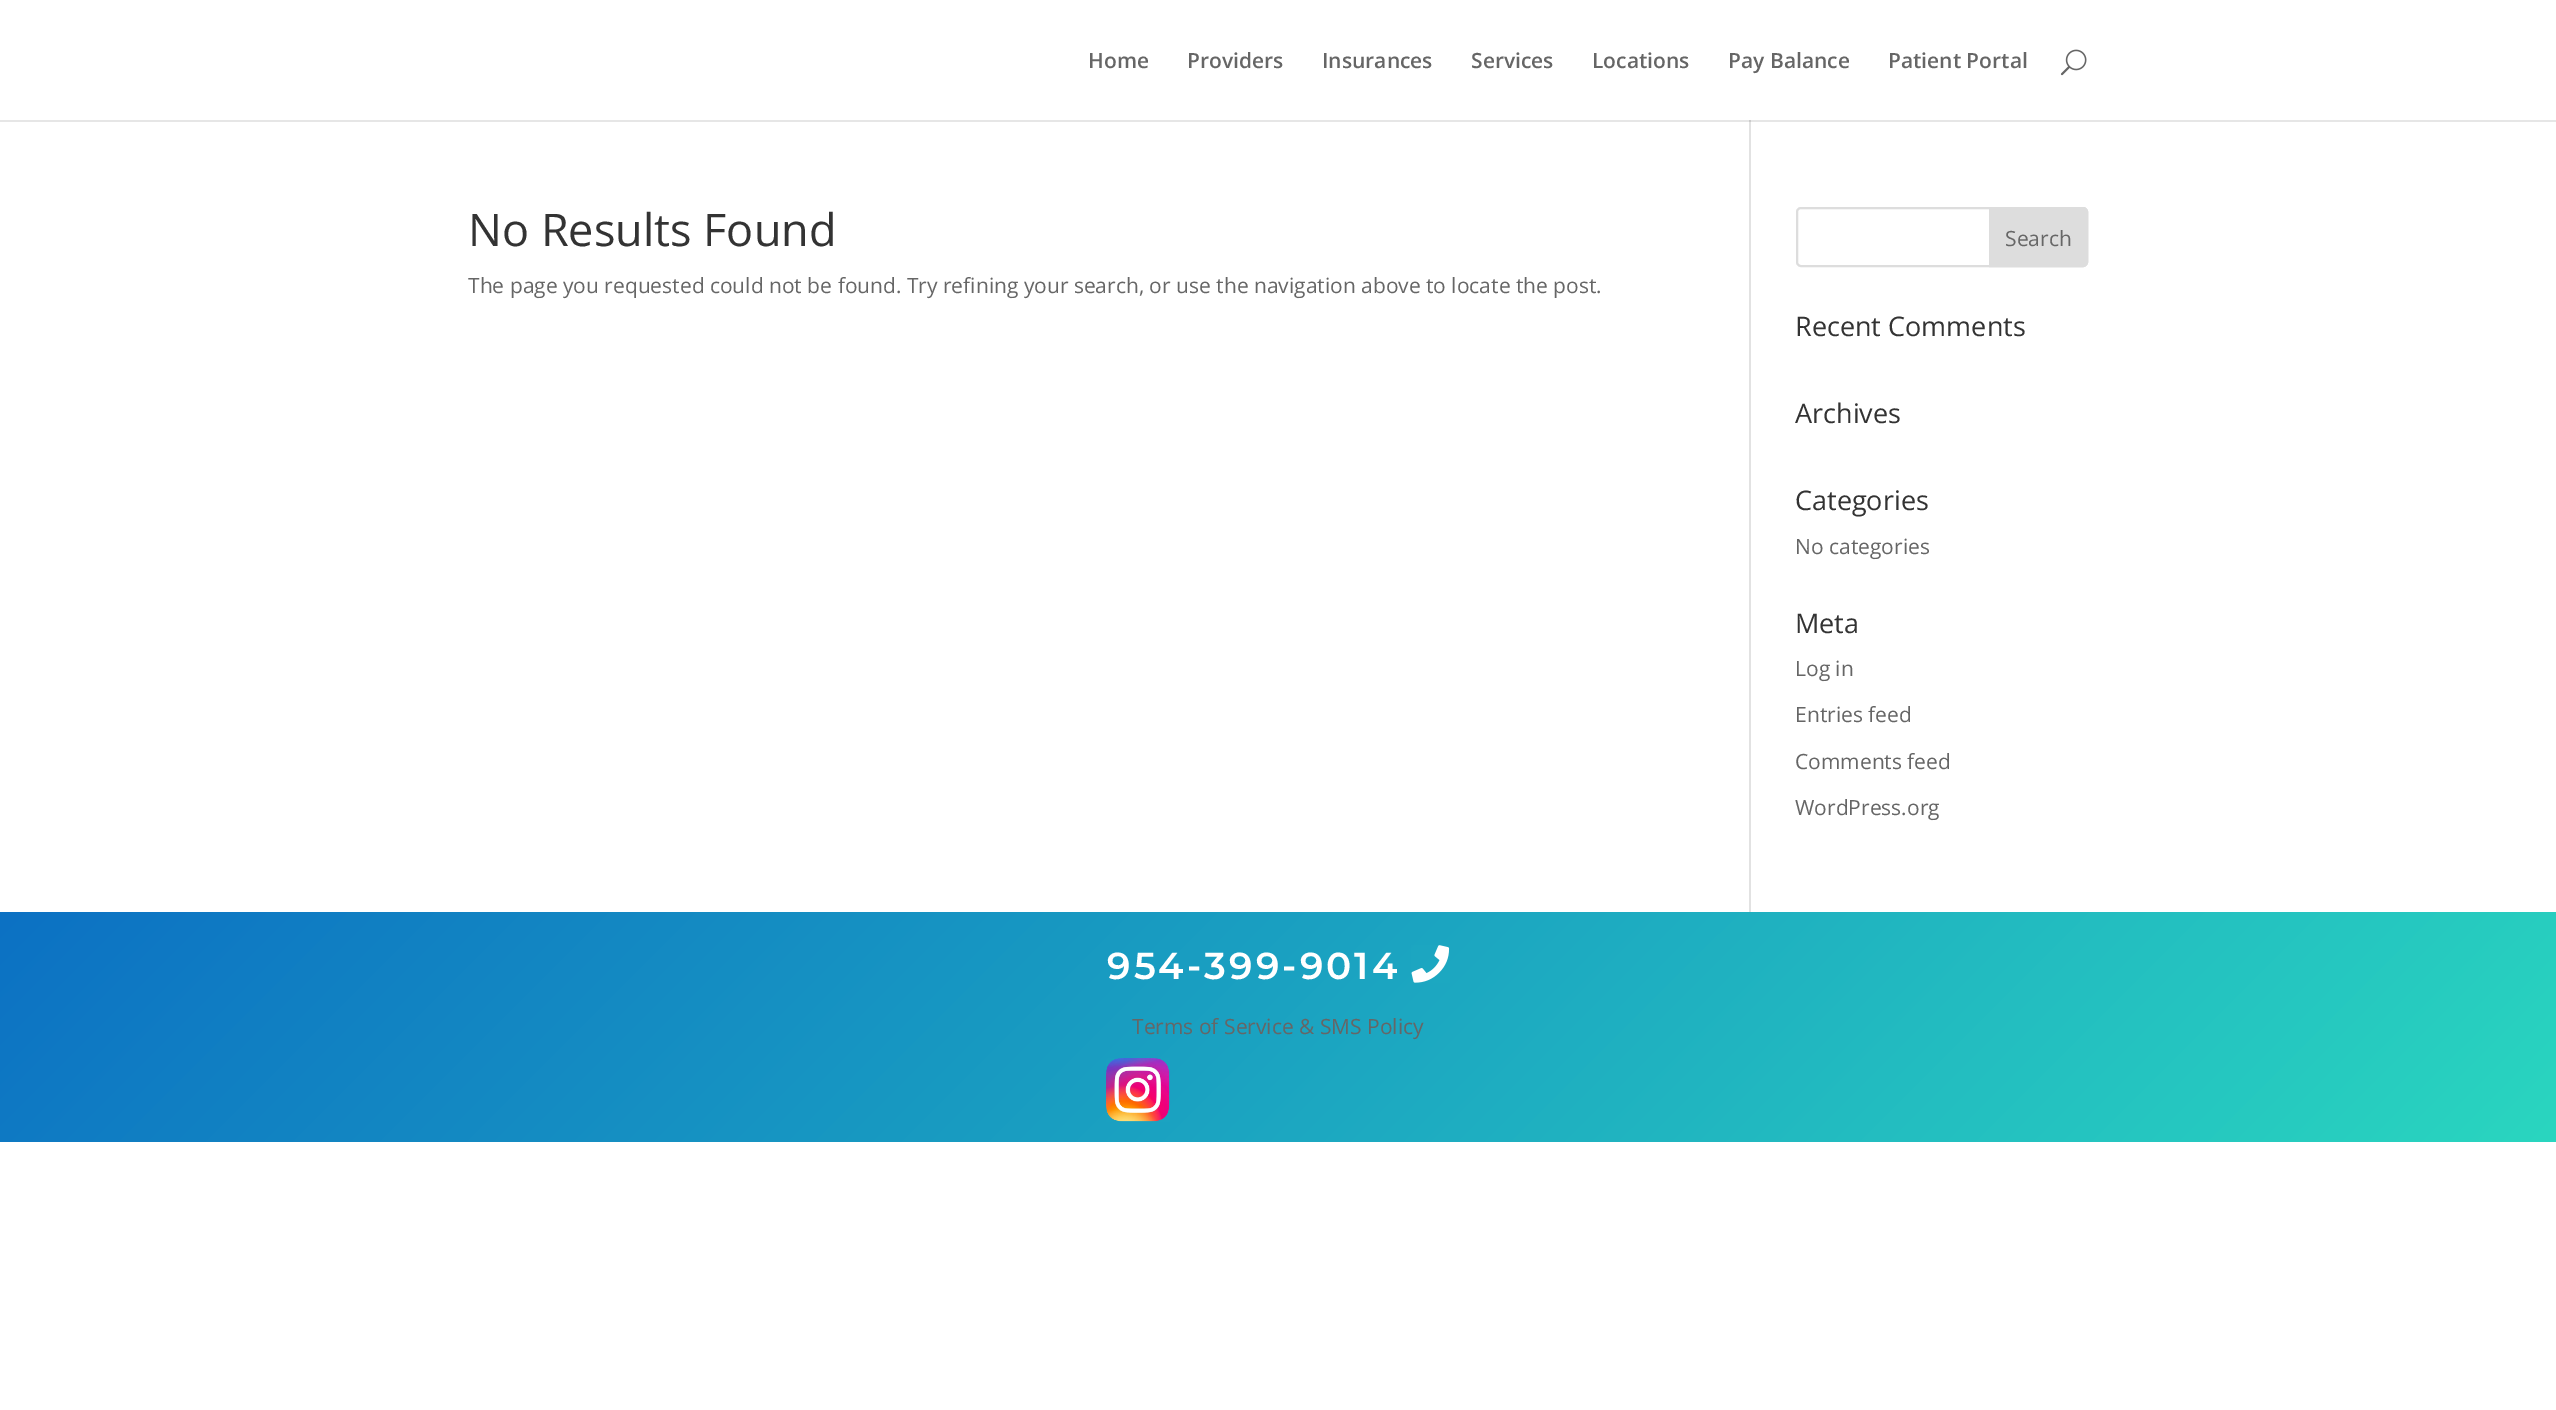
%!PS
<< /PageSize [2556 1410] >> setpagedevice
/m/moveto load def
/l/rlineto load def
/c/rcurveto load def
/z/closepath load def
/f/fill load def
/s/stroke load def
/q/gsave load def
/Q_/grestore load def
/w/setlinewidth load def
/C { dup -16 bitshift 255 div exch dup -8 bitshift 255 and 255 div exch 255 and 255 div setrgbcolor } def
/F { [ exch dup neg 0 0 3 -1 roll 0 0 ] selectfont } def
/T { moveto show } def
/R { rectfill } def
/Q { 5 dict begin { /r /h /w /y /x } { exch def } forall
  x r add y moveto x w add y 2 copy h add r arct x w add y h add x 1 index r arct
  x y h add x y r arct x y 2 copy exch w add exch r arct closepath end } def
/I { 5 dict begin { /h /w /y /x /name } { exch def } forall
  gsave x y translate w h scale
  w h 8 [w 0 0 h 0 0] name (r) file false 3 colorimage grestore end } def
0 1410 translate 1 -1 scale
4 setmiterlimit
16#FFFFFF C
0 0 2556 1410 R
16#E6E6E6 C
0 120 2556 2 R
/OpenSans-SemiBold 21 F
16#666666 C
(Home) 1088 68 T
(Providers) 1187 68 T
(Insurances) 1322 68 T
(Services) 1471 68 T
(Locations) 1592 68 T
(Pay Balance) 1728 68 T
(Patient Portal) 1888 68 T
(1.rgb) 2060 49 27 27 I
16#E2E2E2 C
1749 120 2 792 R
16#CBCBCB C
1749 120 2 2 R
/OpenSans-Regular 45 F
16#333333 C
(No Results Found) 468 246 T
/OpenSans-Regular 21 F
16#666666 C
(The page you requested could not be found. Try refining your search, or use the navigation above to locate the post.) 468 293 T
16#DDDDDD C
2 w
1797 208 290 58 4 Q s
1990 208 m 93 0 l 2 0 4 2 4 4 c 0 50 l 0 2 -2 4 -4 4 c -93 0 l z q f Q_
s
16#666666 C
(Search) 2005 246 T
/OpenSans-Regular 27 F
16#333333 C
(Recent Comments) 1795 336 T
(Archives) 1795 423 T
(Categories) 1795 510 T
/OpenSans-Regular 21 F
16#666666 C
(No categories) 1795 554 T
/OpenSans-Regular 27 F
16#333333 C
(Meta) 1795 633 T
/OpenSans-Regular 21 F
16#666666 C
(Log in) 1795 676 T
(Entries feed) 1795 722 T
(Comments feed) 1795 769 T
(WordPress.org) 1795 815 T
q 0 912 m 2556 0 l 0 230 l -2556 0 l z clip newpath
<< /ShadingType 2 /ColorSpace /DeviceRGB /Coords [582 330 1974 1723] /Extend [true true] /Function << /FunctionType 2 /Domain [0 1] /C0 [.047 .443 .765] /C1 [.165 .839 .749] /N 1 >> >> shfill Q_
/Montserrat-SemiBold 37.5 F
16#FFFFFF C
1107 979 m 3 0 (954-399-9014) ashow
(2.rgb) 1411 945 39 38 I
/OpenSans-Regular 21 F
16#666666 C
(Terms of Service & SMS Policy) 1132 1034 T
(3.rgb) 1106 1058 64 64 I
showpage
